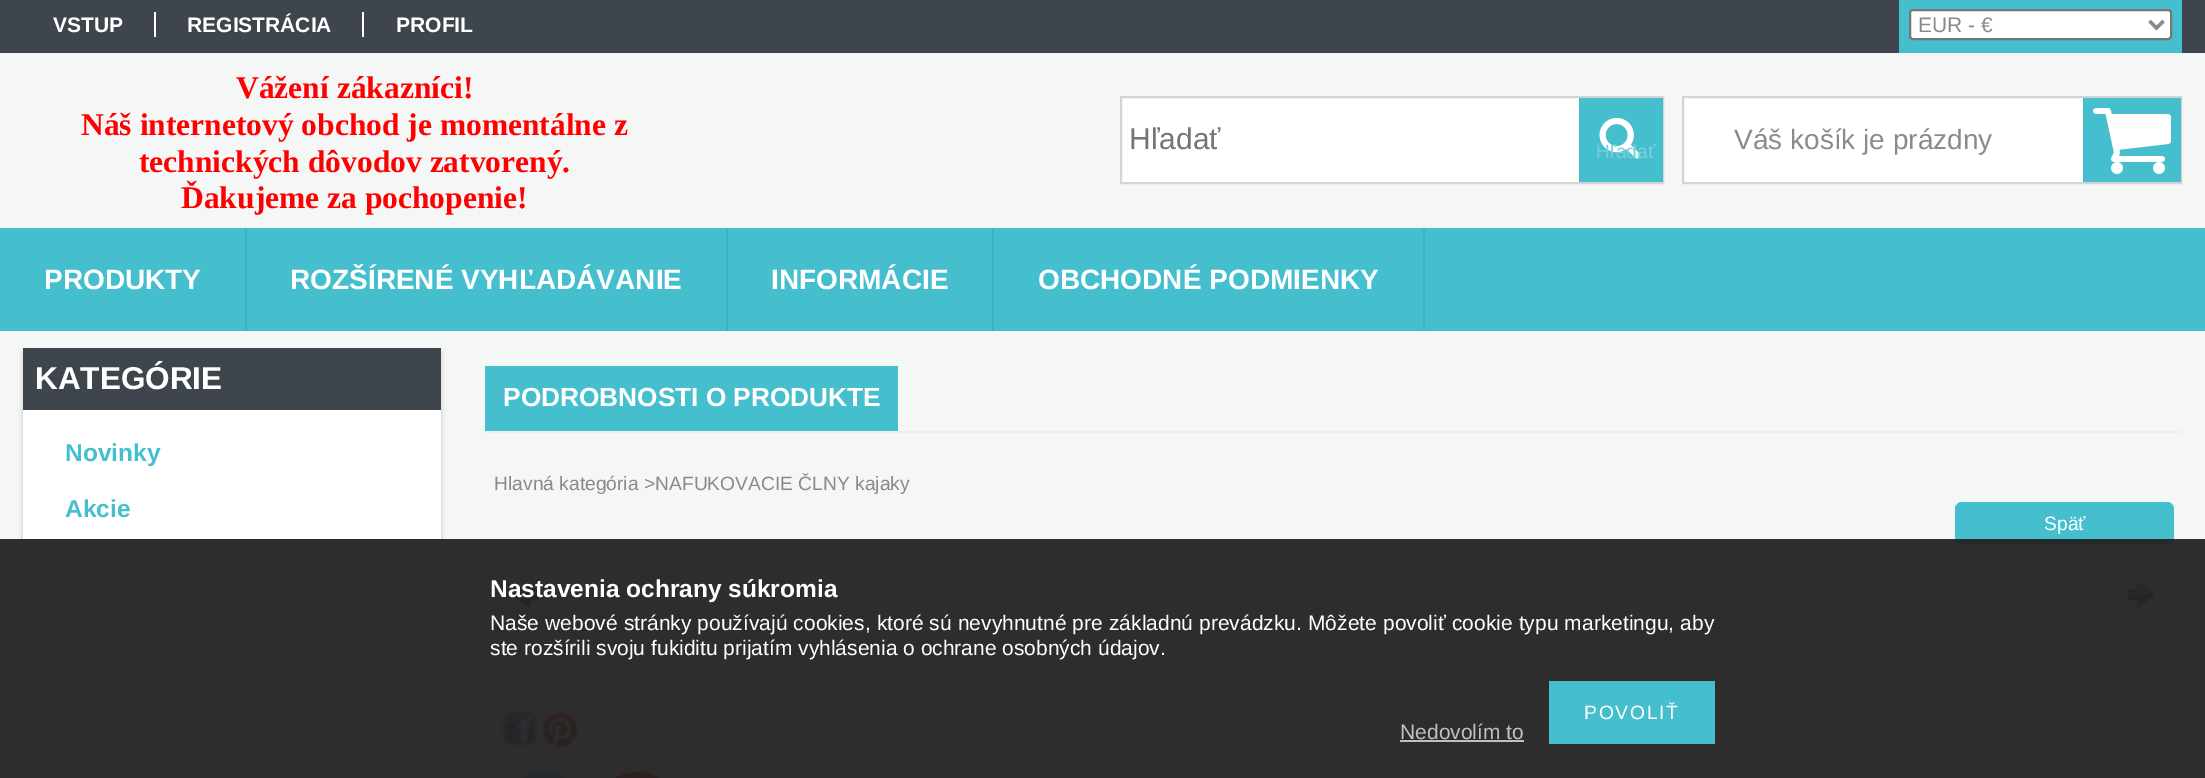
%!PS
<< /PageSize [2205 778] /PageUsesTransparency true >> setpagedevice
/m/moveto load def
/l/rlineto load def
/f/fill load def
/s/stroke load def
/q/gsave load def
/Q_/grestore load def
/w/setlinewidth load def
/C { dup -16 bitshift 255 div exch dup -8 bitshift 255 and 255 div exch 255 and 255 div setrgbcolor } def
/F { [ exch dup neg 0 0 3 -1 roll 0 0 ] selectfont } def
/T { moveto show } def
/R { rectfill } def
/A { dup .setfillconstantalpha .setstrokeconstantalpha } def
/Q { 5 dict begin { /r /h /w /y /x } { exch def } forall
  x r add y moveto x w add y 2 copy h add r arct x w add y h add x 1 index r arct
  x y h add x y r arct x y 2 copy exch w add exch r arct closepath end } def
/S { 12 dict begin { /a /b /q /h /w /y /x } { exch def } forall gsave /was 0 def
  9 -2 -9 { dup b mul 4 div /e exch def 1 sub .425 mul 2.718 exch exp 1 add a .99 .min exch div /now exch def
    1 1 now sub 1 was sub div sub A /was now def
    w h .min e 2 mul add 0 gt { x e sub y e sub w e 2 mul add h e 2 mul add
      q e add b .6 mul add w h .min 2 div e add .min 0 .max Q fill } if } for grestore end } def
/I { 5 dict begin { /h /w /y /x /name } { exch def } forall
  gsave x y translate w h scale
  w h 8 [w 0 0 h 0 0] name (r) file false 3 colorimage grestore end } def
0 .pushpdf14devicefilter
0 778 translate 1 -1 scale
4 setmiterlimit
16#F5F6F6 C
0 0 2205 778 R
16#3E454C C
0 0 2205 53 R
/LiberationSans-Bold 21 F
16#FFFFFF C
(VSTUP) 53 32 T
154 12 2 25 R
(REGISTRÁCIA) 187 32 T
362 12 2 25 R
(PROFIL) 396 32 T
16#45BFCE C
1899 0 283 53 R
16#FFFFFF C
1910 10 261 29 3 Q q f Q_
16#767676 C
2 w
s
16#8B8A8A C
3.5 w
2149.5 21 m 7 7 l 7 -7 l s
/LiberationSans-Regular 21 F
(EUR - €) 1918 32 T
/LiberationSerif-Bold 31.5 F
16#FF0000 C
(Vážení zákazníci!) 236 98 T
(Náš internetový obchod je momentálne z) 81 135 T
(technických dôvodov zatvorený.) 139 172 T
(Ďakujeme za pochopenie!) 181 208 T
16#FFFFFF C
1122 98 457 84 R
16#D4D4D4 C
2 w
1121 97 542 86 rectstroke
/LiberationSans-Regular 30 F
16#757575 C
(Hľadať) 1129 149 T
16#45BFCE C
1579 98 84 84 R
(1.rgb) 1599 117 42 42 I
/LiberationSans-Regular 19.25 F
16#76D0DB C
(Hľadať) 1596 158 T
16#FFFFFF C
1684 98 399 84 R
16#D4D4D4 C
1683 97 498 86 rectstroke
/LiberationSans-Regular 28 F
16#8B8A8A C
(Váš košík je prázdny) 1734 149 T
16#45BFCE C
2083 98 98 84 R
(2.rgb) 2093 108 78 66 I
0 228 2205 103 R
0.07 A
16#000000 C
245 228 2 103 R
/LiberationSans-Bold 28 F
1 A
16#FFFFFF C
(PRODUKTY) 44 289 T
0.07 A
16#000000 C
726 228 2 103 R
1 A
16#FFFFFF C
(ROZŠÍRENÉ VYHĽADÁVANIE) 290 289 T
0.07 A
16#000000 C
992 228 2 103 R
1 A
16#FFFFFF C
(INFORMÁCIE) 771 289 T
0.07 A
16#000000 C
1423 228 2 103 R
1 A
16#FFFFFF C
(OBCHODNÉ PODMIENKY) 1038 289 T
16#000000 C
23 352 418 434 0 2.5 .2 S
16#3E454C C
23 348 418 62 R
/LiberationSans-Bold 31.5 F
16#FFFFFF C
(KATEGÓRIE) 35 389 T
23 410 418 368 R
/LiberationSans-Bold 24.5 F
16#45BFCE C
(Novinky) 65 461 T
(Akcie) 65 517 T
16#EFEFEF C
485 431 1697 2 R
16#45BFCE C
485 366 413 65 R
/LiberationSans-Bold 26.25 F
16#FFFFFF C
(PODROBNOSTI O PRODUKTE) 503 406 T
/LiberationSans-Regular 19.25 F
16#8B8A8A C
(Hlavná kategória >NAFUKOVACIE ČLNY kajaky) 494 490 T
16#45BFCE C
1955 502 219 42 7 Q f
16#FFFFFF C
(Späť) 2044 530 T
16#ECEAEA C
485 562 1697 2 R
(3.rgb) 512 582 27 26 I
(4.rgb) 2128 582 27 26 I
485 627 1697 2 R
502 765 1665 2 R
(5.rgb) 502 712 36 35 I
(6.rgb) 542 712 36 36 I
16#45BFCE C
502 772 84 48 42 Q f
16#FF0000 C
595 772 84 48 42 Q f
0.95 A
16#222222 C
0 539 2205 239 R
/LiberationSans-Bold 24.5 F
1 A
16#FFFFFF C
(Nastavenia ochrany súkromia) 490 597 T
/LiberationSans-Regular 21 F
490 630 m .3 0 32 (Naše webové stránky používajú cookies, ktoré sú nevyhnutné pre základnú prevádzku. Môžete povoliť cookie typu marketingu, aby) widthshow
(ste rozšírili svoju fukiditu prijatím vyhlásenia o ochrane osobných údajov.) 490 655 T
16#45BFCE C
1549 681 166 63 R
/LiberationSans-Regular 19.25 F
16#FFFFFF C
1584 719 m 1.75 0 (POVOLIŤ) ashow
/LiberationSans-Regular 21 F
16#C0C0C0 C
(Nedovolím to) 1400 739 T
1400 740 124 2 R
.poppdf14devicefilter showpage
